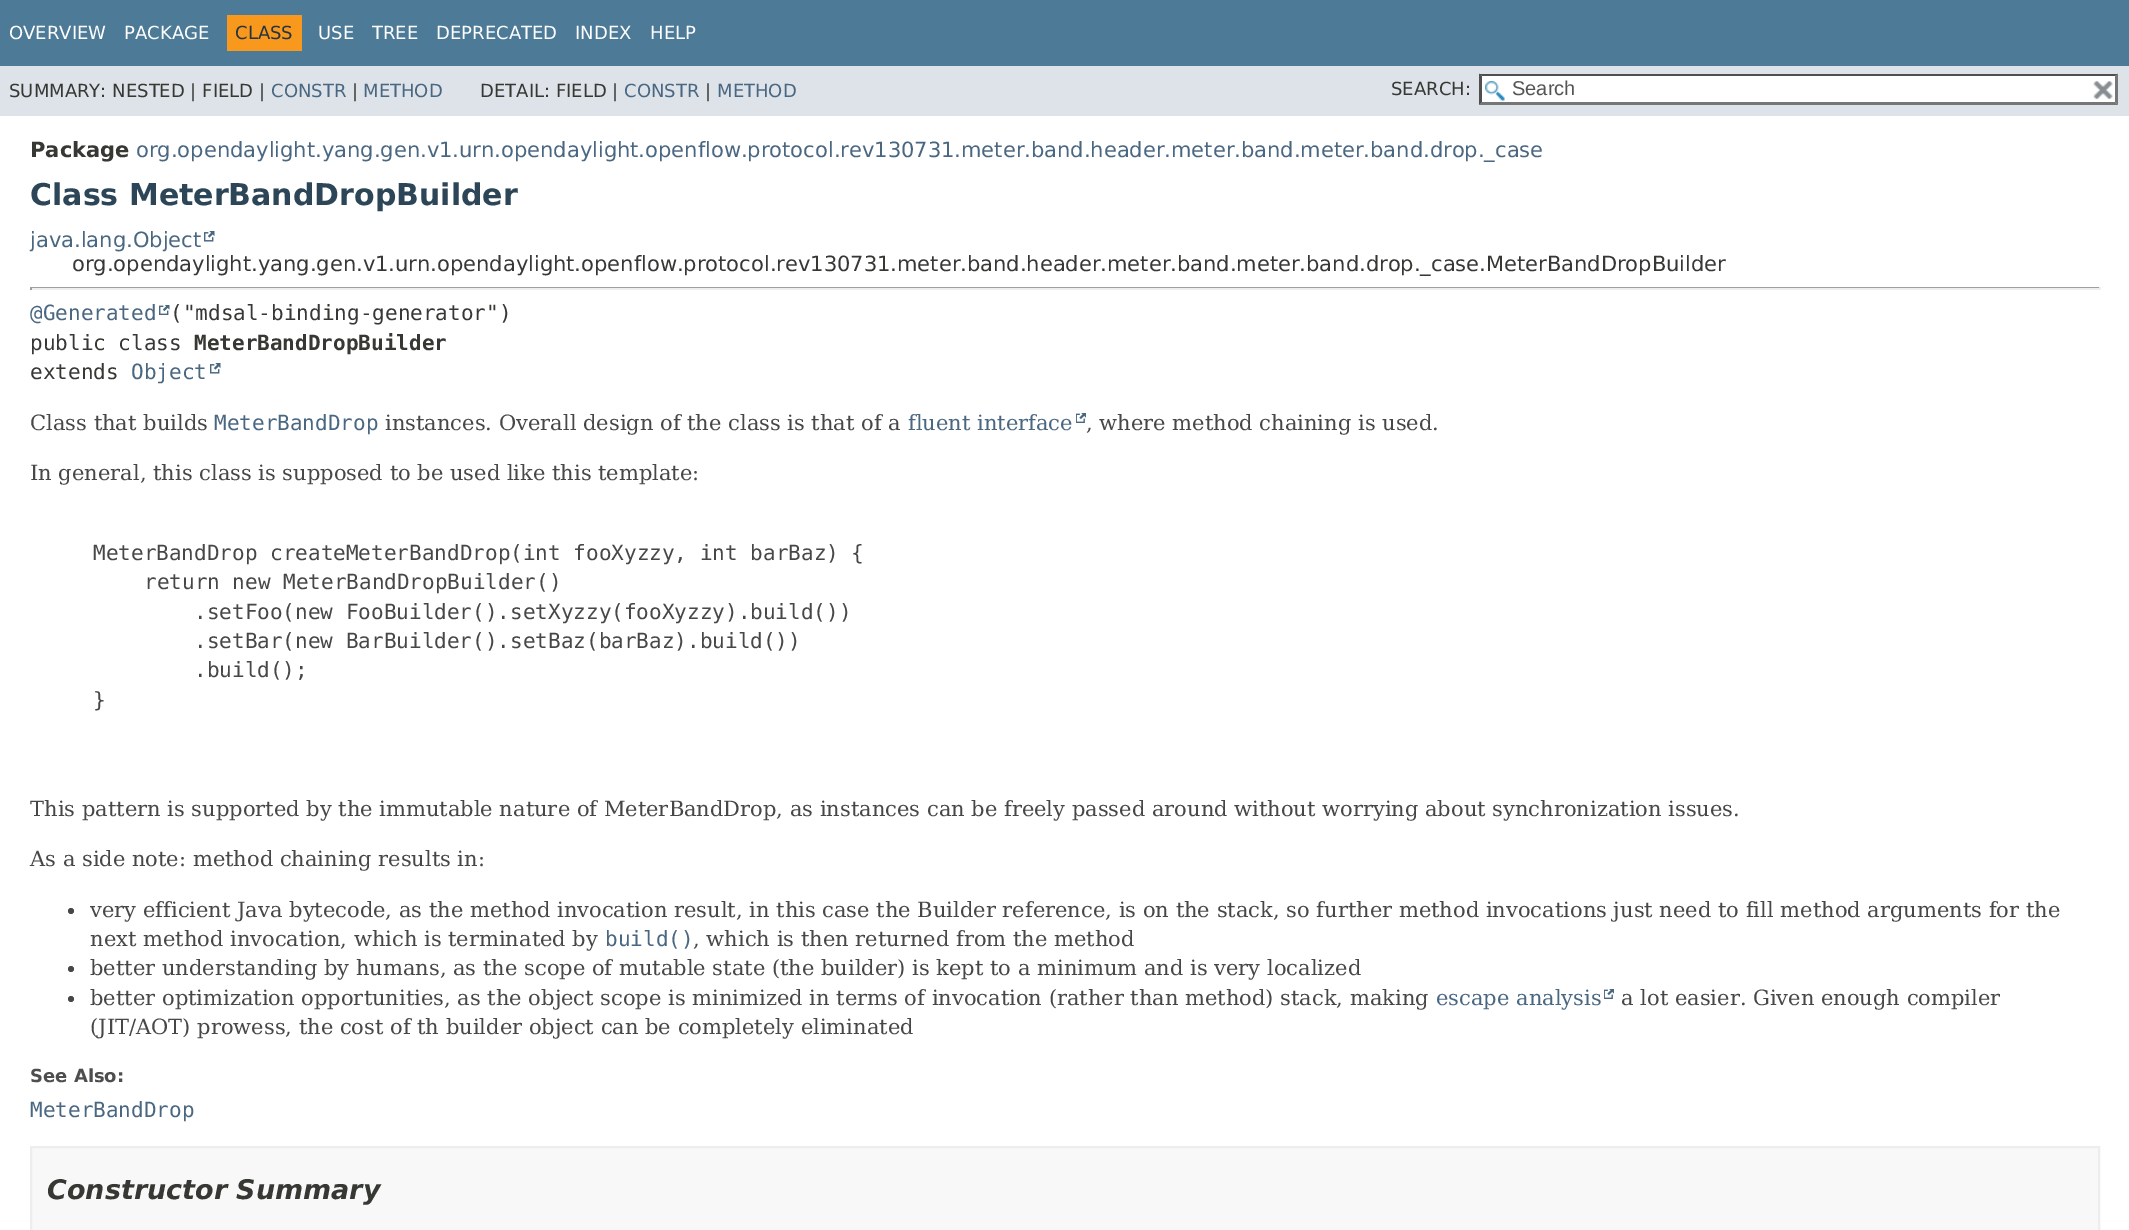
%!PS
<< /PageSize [2129 1230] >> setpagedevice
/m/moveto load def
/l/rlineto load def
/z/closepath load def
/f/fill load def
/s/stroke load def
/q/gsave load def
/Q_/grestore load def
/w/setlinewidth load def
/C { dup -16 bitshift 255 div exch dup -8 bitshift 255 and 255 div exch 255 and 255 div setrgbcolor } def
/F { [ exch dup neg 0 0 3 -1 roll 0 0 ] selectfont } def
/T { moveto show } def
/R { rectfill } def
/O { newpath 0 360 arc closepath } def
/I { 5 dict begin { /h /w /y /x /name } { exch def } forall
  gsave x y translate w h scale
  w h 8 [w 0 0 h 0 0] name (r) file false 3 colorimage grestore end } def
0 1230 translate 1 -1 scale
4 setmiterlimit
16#FFFFFF C
0 0 2129 1230 R
16#4D7A97 C
0 0 2129 66 R
/DejaVuSans-Regular 18 F
16#FFFFFF C
(OVERVIEW) 9 39 T
(PACKAGE) 124 39 T
16#F8981D C
227 15 75 36 R
16#253441 C
(CLASS) 235 39 T
16#FFFFFF C
(USE) 318 39 T
(TREE) 372 39 T
(DEPRECATED) 436 39 T
(INDEX) 575 39 T
(HELP) 650 39 T
16#DEE3E9 C
0 66 2129 50 R
16#353833 C
(SUMMARY: NESTED | FIELD |) 9 97 T
16#4A6782 C
(CONSTR) 271 97 T
16#353833 C
(|) 352 97 T
16#4A6782 C
(METHOD) 363 97 T
16#353833 C
(DETAIL: FIELD |) 480 97 T
16#4A6782 C
(CONSTR) 624 97 T
16#353833 C
(|) 705 97 T
16#4A6782 C
(METHOD) 717 97 T
16#353833 C
(SEARCH:) 1391 95 T
16#FFFFFF C
1479 74 639 31 R
(1.rgb) 1485 81 20 20 I
16#4F4F4F C
1479 74 m 639 0 l -3 2 l -633 0 l z f
16#767676 C
2118 73.5 m 0 31.5 l -3 -3 l 0 -25.5 l z f
2118 105 m -639 0 l 3 -3 l 633 0 l z f
16#4F4F4F C
1479 105 m 0 -31.5 l 3 3 l 0 25.5 l z f
/LiberationSans-Regular 20 F
16#545454 C
(Search) 1512 95 T
(2.rgb) 2093 81 20 19 I
/DejaVuSans-Bold 21 F
16#353833 C
(Package) 30 157 T
/DejaVuSans-Regular 21 F
16#4A6782 C
(org.opendaylight.yang.gen.v1.urn.opendaylight.openflow.protocol.rev130731.meter.band.header.meter.band.meter.band.drop._case) 136 157 T
/DejaVuSans-Bold 30 F
16#2C4557 C
(Class MeterBandDropBuilder) 30 205 T
/DejaVuSans-Regular 21 F
16#4A6782 C
(java.lang.Object) 30 247 T
(3.rgb) 204 231 11 11 I
16#353833 C
(org.opendaylight.yang.gen.v1.urn.opendaylight.openflow.protocol.rev130731.meter.band.header.meter.band.meter.band.drop._case.MeterBandDropBuilder) 72 271 T
16#9F9F9F C
30 287 2070 1 R
16#EEEEEE C
2099 287 2 3 R
30 288 2070 2 R
16#9F9F9F C
30 287 2 3 R
/DejaVuSansMono-Regular 21 F
16#4A6782 C
(@Generated) 30 320 T
(4.rgb) 159 305 11 10 I
16#353833 C
(\("mdsal-binding-generator"\)) 170 320 T
(public class) 30 350 T
/DejaVuSansMono-Bold 21 F
(MeterBandDropBuilder) 194 350 T
/DejaVuSansMono-Regular 21 F
(extends) 30 379 T
16#4A6782 C
(Object) 131 379 T
(3.rgb) 210 363 11 11 I
/DejaVuSerif-Regular 21 F
16#474747 C
(Class that builds) 30 430 T
/DejaVuSansMono-Regular 21 F
16#4A6782 C
(MeterBandDrop) 214 430 T
/DejaVuSerif-Regular 21 F
16#474747 C
(instances. Overall design of the class is that of a) 385 430 T
16#4A6782 C
(fluent interface) 908 430 T
(5.rgb) 1076 413 10 10 I
16#474747 C
(, where method chaining is used.) 1086 430 T
(In general, this class is supposed to be used like this template:) 30 480 T
/DejaVuSansMono-Regular 21 F
(MeterBandDrop createMeterBandDrop\(int fooXyzzy, int barBaz\) {) 93 560 T
(return new MeterBandDropBuilder\(\)) 144 589 T
(.setFoo\(new FooBuilder\(\).setXyzzy\(fooXyzzy\).build\(\)\)) 194 619 T
(.setBar\(new BarBuilder\(\).setBaz\(barBaz\).build\(\)\)) 194 648 T
(.build\(\);) 194 677 T
(}) 93 707 T
/DejaVuSerif-Regular 21 F
(This pattern is supported by the immutable nature of MeterBandDrop, as instances can be freely passed around without worrying about synchronization issues.) 30 816 T
(As a side note: method chaining results in:) 30 866 T
71 911 3 O f
(very efficient Java bytecode, as the method invocation result, in this case the Builder reference, is on the stack, so further method invocations just need to fill method arguments for the) 90 917 T
(next method invocation, which is terminated by) 90 946 T
/DejaVuSansMono-Regular 21 F
16#4A6782 C
(build\(\)) 605 946 T
/DejaVuSerif-Regular 21 F
16#474747 C
(, which is then returned from the method) 693 946 T
71 969 3 O f
(better understanding by humans, as the scope of mutable state \(the builder\) is kept to a minimum and is very localized) 90 975 T
71 999 3 O f
(better optimization opportunities, as the object scope is minimized in terms of invocation \(rather than method\) stack, making) 90 1005 T
16#4A6782 C
(escape analysis) 1436 1005 T
(5.rgb) 1604 989 10 10 I
16#474747 C
(a lot easier. Given enough compiler) 1621 1005 T
(\(JIT/AOT\) prowess, the cost of th builder object can be completely eliminated) 90 1034 T
/DejaVuSans-Bold 18 F
16#4E4E4E C
(See Also:) 30 1082 T
/DejaVuSansMono-Regular 21 F
16#4A6782 C
(MeterBandDrop) 30 1117 T
16#F8F8F8 C
31 1147 m 2068 0 l 0 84 l -2068 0 l z q f Q_
16#EDEDED C
2 w
s
/DejaVuSans-BoldItalic 27 F
16#353833 C
(Constructor Summary) 47 1199 T
showpage
